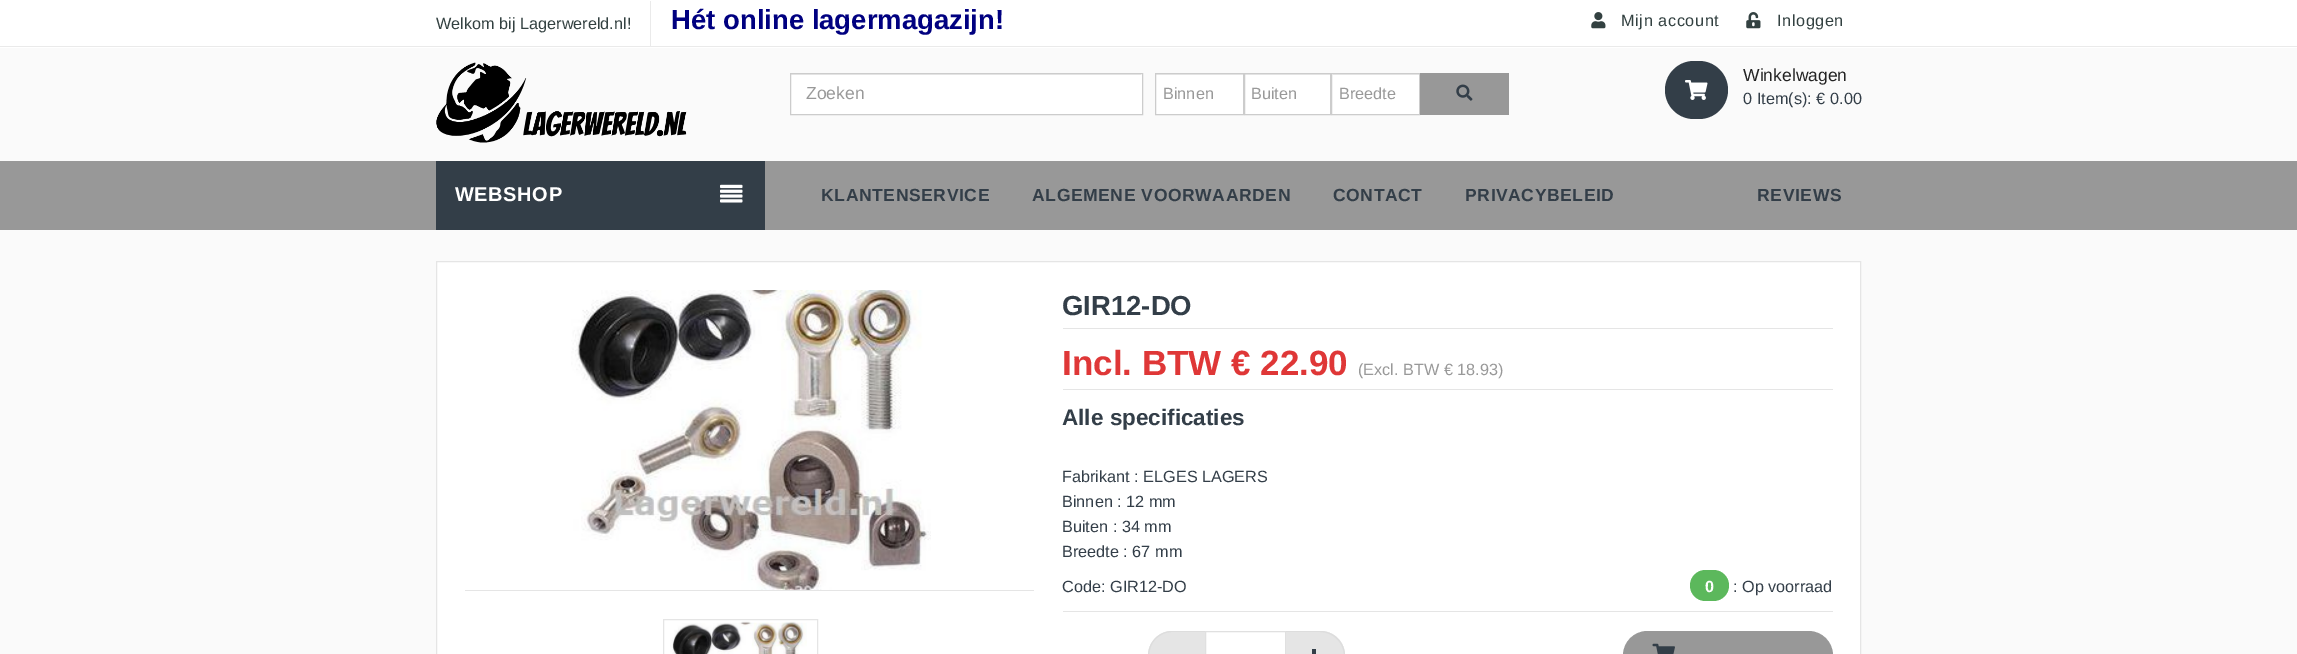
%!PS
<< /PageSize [2297 654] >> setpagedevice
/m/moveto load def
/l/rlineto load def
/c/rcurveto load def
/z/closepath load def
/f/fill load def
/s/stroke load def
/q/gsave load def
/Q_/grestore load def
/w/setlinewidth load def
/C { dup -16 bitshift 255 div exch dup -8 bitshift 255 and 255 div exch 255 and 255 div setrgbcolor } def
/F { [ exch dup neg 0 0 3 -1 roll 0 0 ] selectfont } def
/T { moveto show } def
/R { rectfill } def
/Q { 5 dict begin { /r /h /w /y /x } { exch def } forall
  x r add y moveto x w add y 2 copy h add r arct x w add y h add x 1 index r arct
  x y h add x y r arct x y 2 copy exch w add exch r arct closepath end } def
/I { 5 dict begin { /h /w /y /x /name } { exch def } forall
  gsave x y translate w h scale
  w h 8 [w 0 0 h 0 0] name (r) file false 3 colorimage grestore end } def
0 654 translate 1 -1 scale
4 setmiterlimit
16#FAFAFA C
0 0 2297 654 R
16#FFFFFF C
0 0 2297 48 R
16#EAEAEA C
0 46 2297 1 R
650 1 1 45 R
/Arimo-Regular 16.25 F
16#334141 C
(Welkom bij Lagerwereld.nl!) 436 29 T
/Arimo-Bold 27.5 F
16#000080 C
(Hét online lagermagazijn!) 671 29 T
(1.rgb) 1591 12 15 17 I
/Arimo-Regular 16.25 F
16#334141 C
1621 26 m .6 0 (Mijn account) ashow
(2.rgb) 1746 12 15 17 I
1777 26 m .6 0 (Inloggen) ashow
(3.rgb) 436 62 251 81 I
16#FFFFFF C
791 74 351 40 R
16#ECECEC C
791 74 350 1 R
16#CCCCCC C
790.5 73.5 352 41 rectstroke
/Arimo-Regular 17.5 F
16#999999 C
(Zoeken) 806 99 T
16#FFFFFF C
1156 75 87 39 R
16#ECECEC C
1156 74 87 1 R
16#CCCCCC C
1155.5 73.5 88 41 rectstroke
/Arimo-Regular 16.25 F
16#999999 C
(Binnen) 1163 99 T
16#FFFFFF C
1245 75 85 39 R
16#ECECEC C
1245 74 85 1 R
16#CCCCCC C
1244.5 73.5 86 41 rectstroke
16#999999 C
(Buiten) 1251 99 T
16#FFFFFF C
1332 74 87 40 R
16#ECECEC C
1333 74 86 1 R
16#CCCCCC C
1331.5 73.5 88 41 rectstroke
16#999999 C
(Breedte) 1339 99 T
16#989898 C
1420 73 89 42 R
(4.rgb) 1456 84 17 17 I
16#333E48 C
1665 61 63 58 29 Q f
(5.rgb) 1685 80 23 20 I
/Arimo-Regular 17.5 F
16#232323 C
(Winkelwagen) 1743 81 T
/Arimo-Regular 16.25 F
16#333E48 C
(0 Item\(s\):) 1743 104 T
/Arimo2-Regular 16.25 F
(€) 1816 104 T
/Arimo-Regular 16.25 F
(0.00) 1830 104 T
16#989898 C
0 161 2297 69 R
16#333E48 C
436 161 329 69 R
/Arimo-Bold 20 F
16#FFFFFF C
455 201 m .6 0 (WEBSHOP) ashow
(6.rgb) 720 184 23 19 I
/Arimo-Bold 17.5 F
16#333E48 C
821 201 m .6 0 (KLANTENSERVICE) ashow
1032 201 m .6 0 (ALGEMENE VOORWAARDEN) ashow
1333 201 m .6 0 (CONTACT) ashow
1465 201 m .6 0 (PRIVACYBELEID) ashow
1757 201 m .6 0 (REVIEWS) ashow
16#FFFFFF C
436.5 261.5 m 1424 0 l 0 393 l -1424 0 l z q f Q_
16#E5E5E5 C
s
(7.rgb) 571 290 360 300 I
465 590 569 1 R
663.5 619.5 154 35 rectstroke
(8.rgb) 670 621 137 33 I
1063 328 770 1 R
/Arimo-Bold 27.5 F
16#333E48 C
(GIR12-DO) 1062 315 T
16#E5E5E5 C
1063 389 770 1 R
/Arimo-Bold 35 F
16#DF3737 C
(Incl. BTW € 22.90) 1062 375 T
/Arimo-Regular 16.25 F
16#999999 C
(\(Excl. BTW) 1358 375 T
/Arimo2-Regular 16.25 F
(€) 1444 375 T
/Arimo-Regular 16.25 F
(18.93\)) 1457 375 T
/Arimo-Bold 22.5 F
16#333E48 C
(Alle specificaties) 1062 425 T
/Arimo-Regular 16.25 F
(Fabrikant : ELGES LAGERS) 1062 482 T
(Binnen : 12 mm) 1062 507 T
(Buiten : 34 mm) 1062 532 T
(Breedte : 67 mm) 1062 557 T
(Code: GIR12-DO) 1062 592 T
16#5CB85C C
1690 570 39 31 15.5 Q f
/Arimo-Bold 16.25 F
16#FFFFFF C
(0) 1705 592 T
/Arimo-Regular 16.25 F
16#333E48 C
(: Op voorraad) 1733 592 T
16#E5E5E5 C
1063 611 770 1 R
1173 631 m 32 0 l 0 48 l -32 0 l -14 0 -25 -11 -25 -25 c 0 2 l 0 -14 11 -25 25 -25 c z f
16#DDDDDD C
1172 631 m 33 0 l 0 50 l -33 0 l -13 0 -24 -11 -24 -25 c 0 -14 11 -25 24 -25 c z 1172 632 m 33 0 l 0 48 l -33 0 l -13 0 -23 -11 -23 -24 c 0 -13 10 -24 23 -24 c z eofill
16#E0E0E0 C
1205.5 631.5 80 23 rectstroke
16#E5E5E5 C
1286 631 m 34 0 l 14 0 25 11 25 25 c 0 -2 l 0 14 -11 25 -25 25 c -34 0 l z f
16#DDDDDD C
1286 631 m 34 0 l 14 0 25 11 25 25 c 0 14 -11 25 -25 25 c -34 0 l z 1286 632 m 34 0 l 13 0 24 11 24 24 c 0 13 -11 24 -24 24 c -34 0 l z eofill
16#333E48 C
1312 649 4 5 R
16#989898 C
1624.5 632.5 207 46 23 Q q f Q_
3 w
s
(9.rgb) 1652 643 23 11 I
showpage
